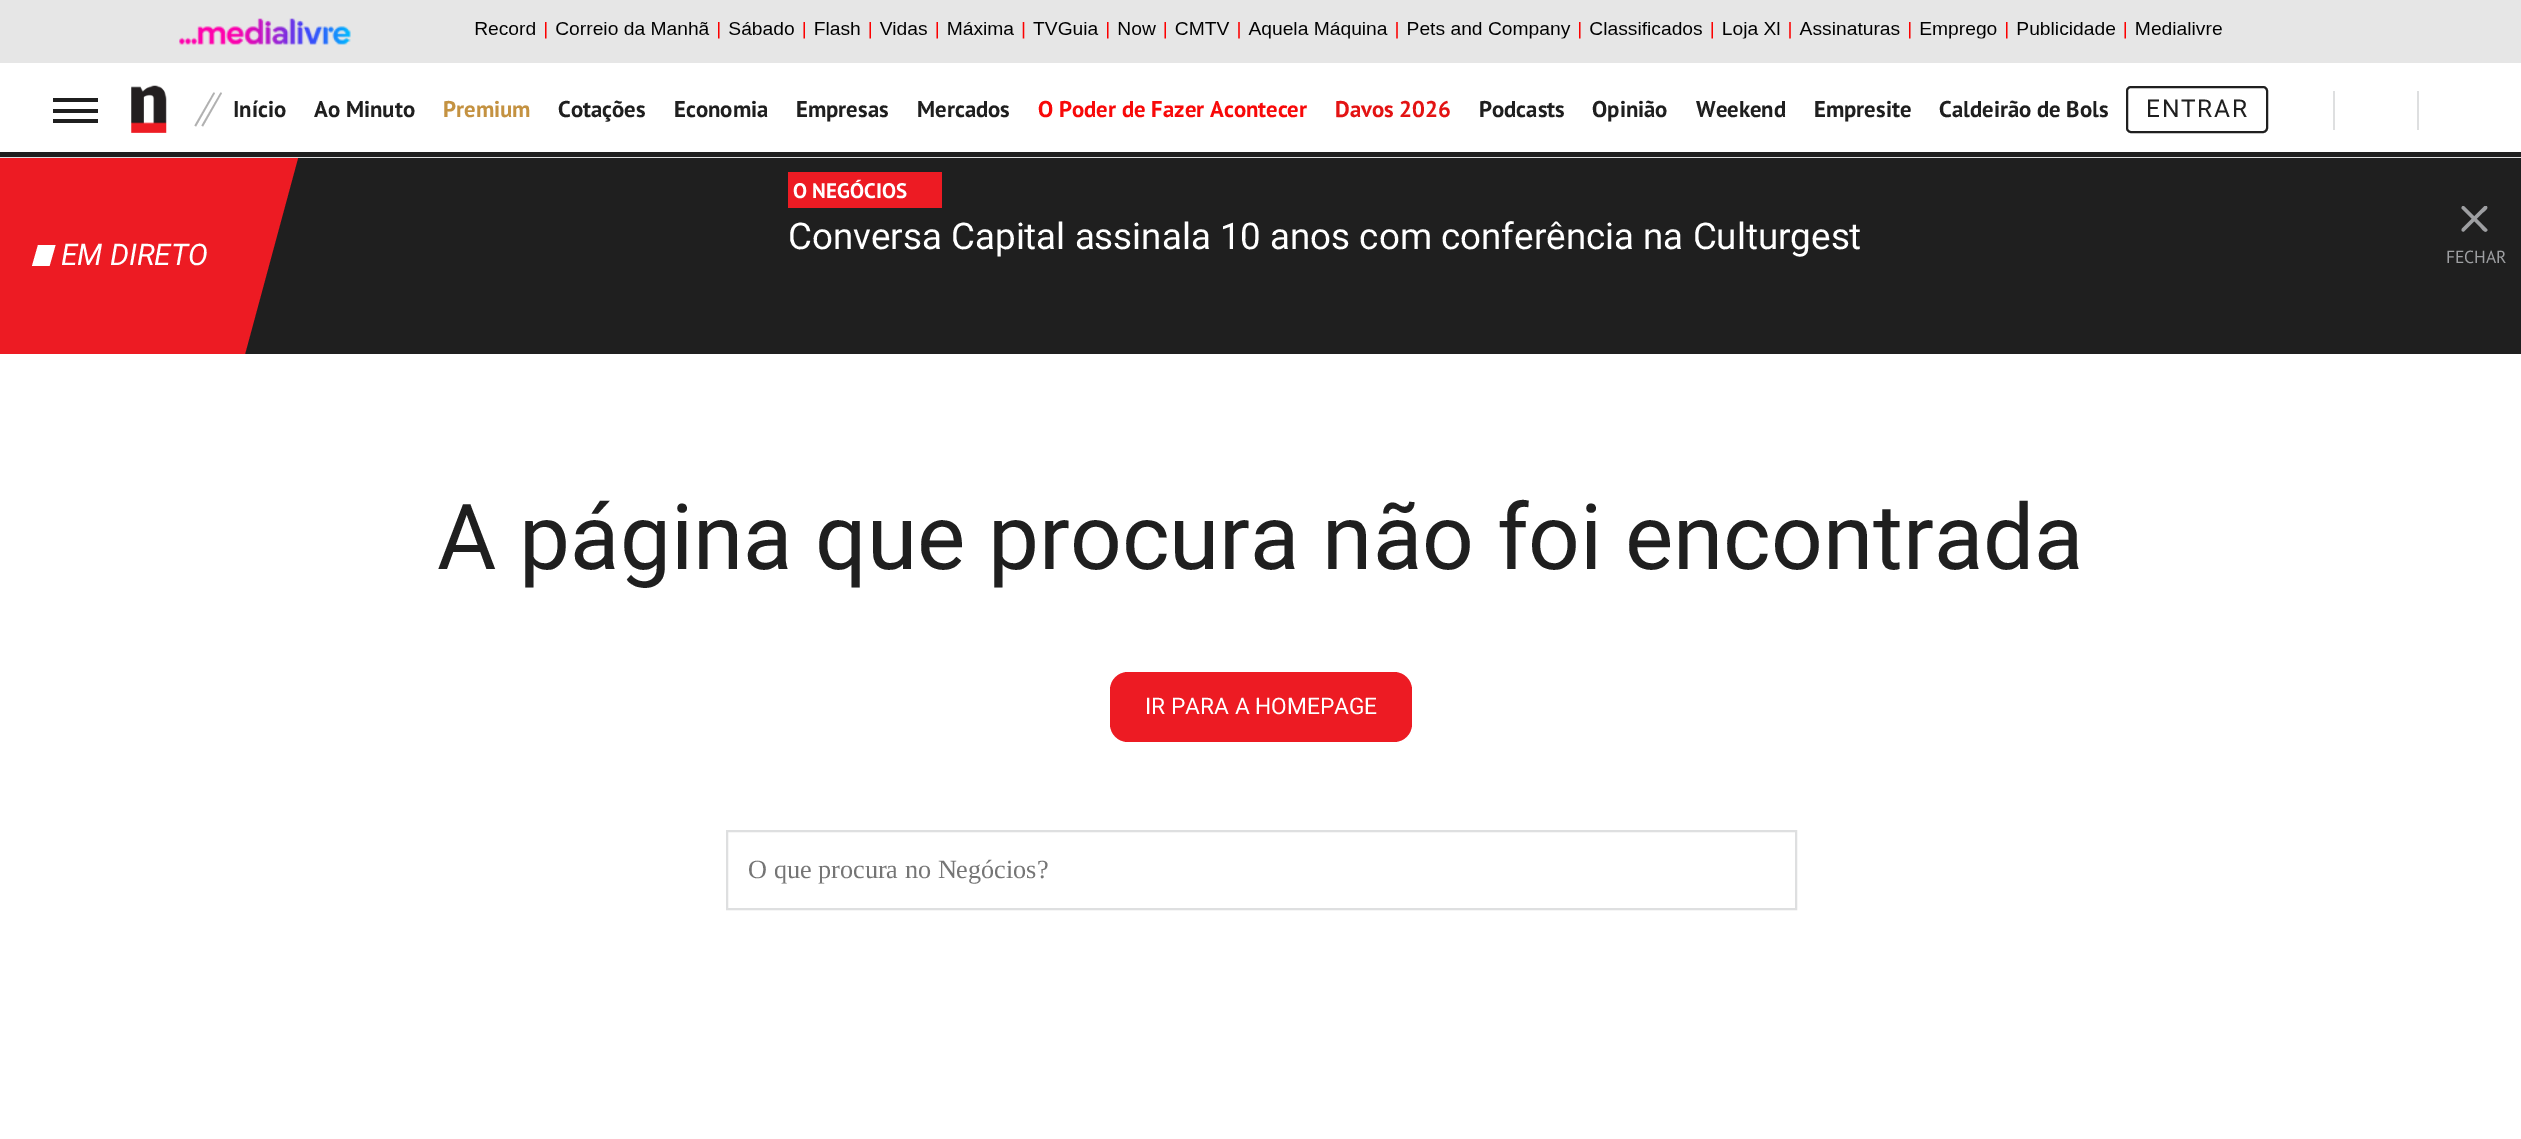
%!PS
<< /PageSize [2521 1139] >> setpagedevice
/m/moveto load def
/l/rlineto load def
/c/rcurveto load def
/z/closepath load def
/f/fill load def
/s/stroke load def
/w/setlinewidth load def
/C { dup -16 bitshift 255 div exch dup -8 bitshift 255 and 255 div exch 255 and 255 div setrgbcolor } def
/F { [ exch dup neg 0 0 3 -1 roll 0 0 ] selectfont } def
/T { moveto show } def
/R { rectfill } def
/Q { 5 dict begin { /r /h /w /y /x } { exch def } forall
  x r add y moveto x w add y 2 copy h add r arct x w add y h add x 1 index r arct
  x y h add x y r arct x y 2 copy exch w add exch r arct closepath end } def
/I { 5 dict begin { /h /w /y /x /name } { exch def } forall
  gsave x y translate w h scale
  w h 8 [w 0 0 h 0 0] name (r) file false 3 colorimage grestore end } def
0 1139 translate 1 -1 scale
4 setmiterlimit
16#FFFFFF C
0 0 2521 1139 R
(1.rgb) 0 0 2521 63 I
16#1F1F1F C
0 152 2521 5 R
16#B1B1B1 C
194.5 125.5 m 19 -33 l 1.5 .5 l -19 33.5 l z f
201.5 125.5 m 19 -33 l 1.5 .5 l -19 33.5 l z f
/PTSans-Bold 22.75 F
16#1F1F1F C
(Início) 233 117 T
(Ao Minuto) 314 117 T
16#C49241 C
(Premium) 443 117 T
16#1F1F1F C
(Cotações) 558 117 T
(Economia) 674 117 T
(Empresas) 796 117 T
(Mercados) 917 117 T
16#F80909 C
(O Poder de Fazer Acontecer) 1038 117 T
16#E31313 C
(Davos 2026) 1335 117 T
16#1F1F1F C
(Podcasts) 1479 117 T
(Opinião) 1592 117 T
(Weekend) 1696 117 T
(Empresite) 1814 117 T
(Caldeirão de Bols) 1939 117 T
16#DEDFE0 C
0 157 2521 1 R
16#1F1F1F C
53 109 45 4 R
53 98 45 4 R
53 119 45 4 R
(2.rgb) 131 85 36 48 I
2 w
2127 87 140 45 4 Q s
/Roboto-Regular 24.5 F
2146 117 m 1.75 0 (ENTRAR) ashow
16#DEDFE0 C
2333 91 2 39 R
2417 91 2 39 R
16#1F1F1F C
245 158 2276 196 R
16#ED1B23 C
0 158 245 196 R
245 158 m 53 0 l -53 196 l z f
788 172 154 36 R
/PTSans-Bold 21 F
16#FFFFFF C
(O NEGÓCIOS) 793 198 T
/Roboto-Regular 36.75 F
(Conversa Capital assinala 10 anos com conferência na Culturgest) 788 249 T
38 245 m 17.5 0 l -6 21 l -17.5 0 l z f
/Roboto-Italic 29.75 F
(EM DIRETO) 61 265 T
16#9E9FA2 C
2464.5 206.5 m 22.5 22.5 l .5 1 l 0 .5 -.5 1 -1 1.5 c -2 1.5 -5.5 -3.5 -6 -4 c -19 -19 l 0 -1.5 .5 -2.5 2 -2.5 c z f
2462 228.5 m 22.5 -22.5 l 1 0 l .5 0 1.5 0 1.5 .5 c 1.5 2.5 -3.5 5.5 -4 6 c -19 19 l -1 .5 -2.5 -.5 -2.5 -1.5 c z f
/PTSans-Regular 17.5 F
(FECHAR) 2446 263 T
/Roboto-Regular 91 F
16#1F1F1F C
(A página que procura não foi encontrada) 437 569 T
16#ED1B23 C
1110 672 302 70 18 Q f
/Roboto-Regular 22.75 F
16#FFFFFF C
(IR PARA A HOMEPAGE) 1145 714 T
16#DEDFE0 C
727 831 1069 78 rectstroke
/LiberationSerif-Regular 26.25 F
16#757575 C
(O que procura no Negócios?) 748 878 T
showpage
